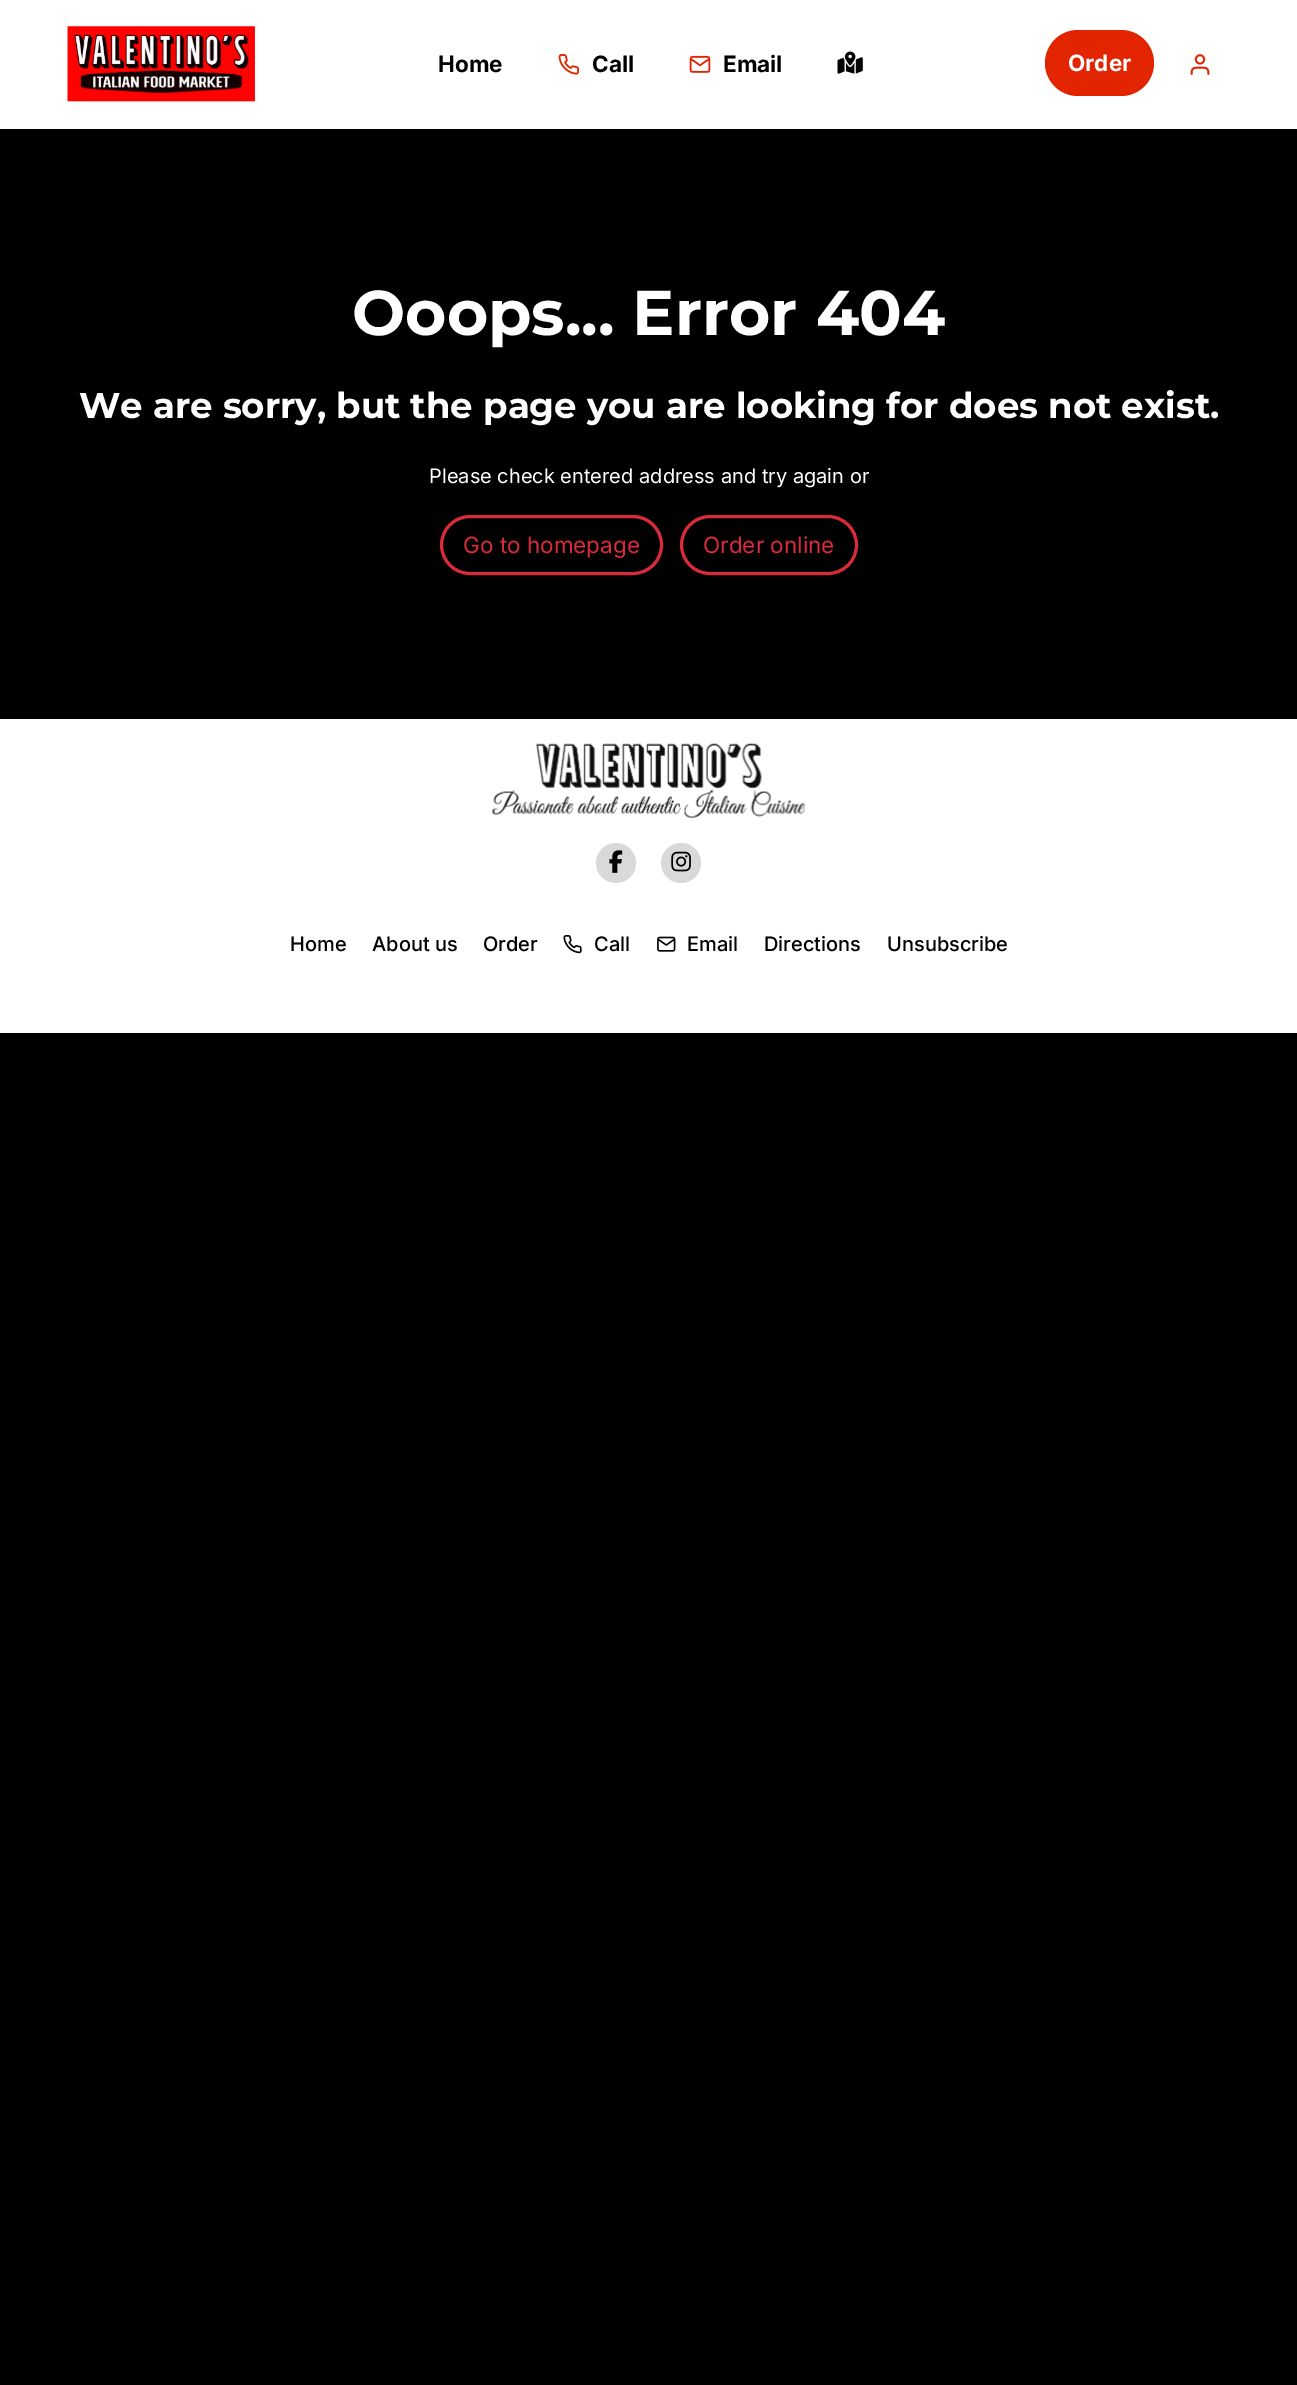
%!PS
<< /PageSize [1297 2385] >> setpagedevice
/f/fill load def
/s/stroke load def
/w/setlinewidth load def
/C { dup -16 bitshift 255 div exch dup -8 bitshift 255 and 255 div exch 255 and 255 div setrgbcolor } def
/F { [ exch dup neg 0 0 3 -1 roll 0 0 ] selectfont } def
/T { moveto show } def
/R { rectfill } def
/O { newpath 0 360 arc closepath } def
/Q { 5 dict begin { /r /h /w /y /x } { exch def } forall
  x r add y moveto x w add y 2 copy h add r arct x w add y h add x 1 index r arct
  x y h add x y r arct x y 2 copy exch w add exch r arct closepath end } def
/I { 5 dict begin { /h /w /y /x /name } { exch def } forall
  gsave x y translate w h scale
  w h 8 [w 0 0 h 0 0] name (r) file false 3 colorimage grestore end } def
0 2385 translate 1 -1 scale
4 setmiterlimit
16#000000 C
0 0 1297 2385 R
16#FFFFFF C
0 0 1297 129 R
(1.rgb) 67 26 188 76 I
/Inter-Bold 22.5 F
16#000000 C
(Home) 438 72 T
(2.rgb) 558 54 22 21 I
(Call) 592 72 T
(3.rgb) 689 55 22 18 I
(Email) 723 72 T
(4.rgb) 837 51 26 23 I
16#E32400 C
1045 30 109 66 33 Q f
16#FFFFFF C
(Order) 1068 71 T
(5.rgb) 1190 54 20 21 I
/Montserrat-Bold 63.1 F
(Ooops... Error 404) 352 335 T
/Montserrat-Bold 35.55 F
(We are sorry, but the page you are looking for does not exist.) 79 418 T
/Inter-Regular 20 F
(Please check entered address and try again or) 429 483 T
16#D92B3A C
3 w
441.5 516.5 220 57 28.5 Q s
/Inter-Regular 22.5 F
(Go to homepage) 463 553 T
681.5 516.5 175 57 28.5 Q s
(Order online) 703 553 T
16#FFFFFF C
0 719 1297 314 R
(6.rgb) 492 743 313 75 I
16#D9D9D9 C
616 863 20 O f
(7.rgb) 609 850 14 23 I
681 863 20 O f
(8.rgb) 671 851 20 21 I
/Inter-Medium 20 F
16#000000 C
(Home) 290 951 T
(About us) 372 951 T
(Order) 483 951 T
(9.rgb) 563 935 19 19 I
(Call) 594 951 T
(10.rgb) 657 936 19 16 I
(Email) 687 951 T
(Directions) 764 951 T
(Unsubscribe) 887 951 T
showpage
